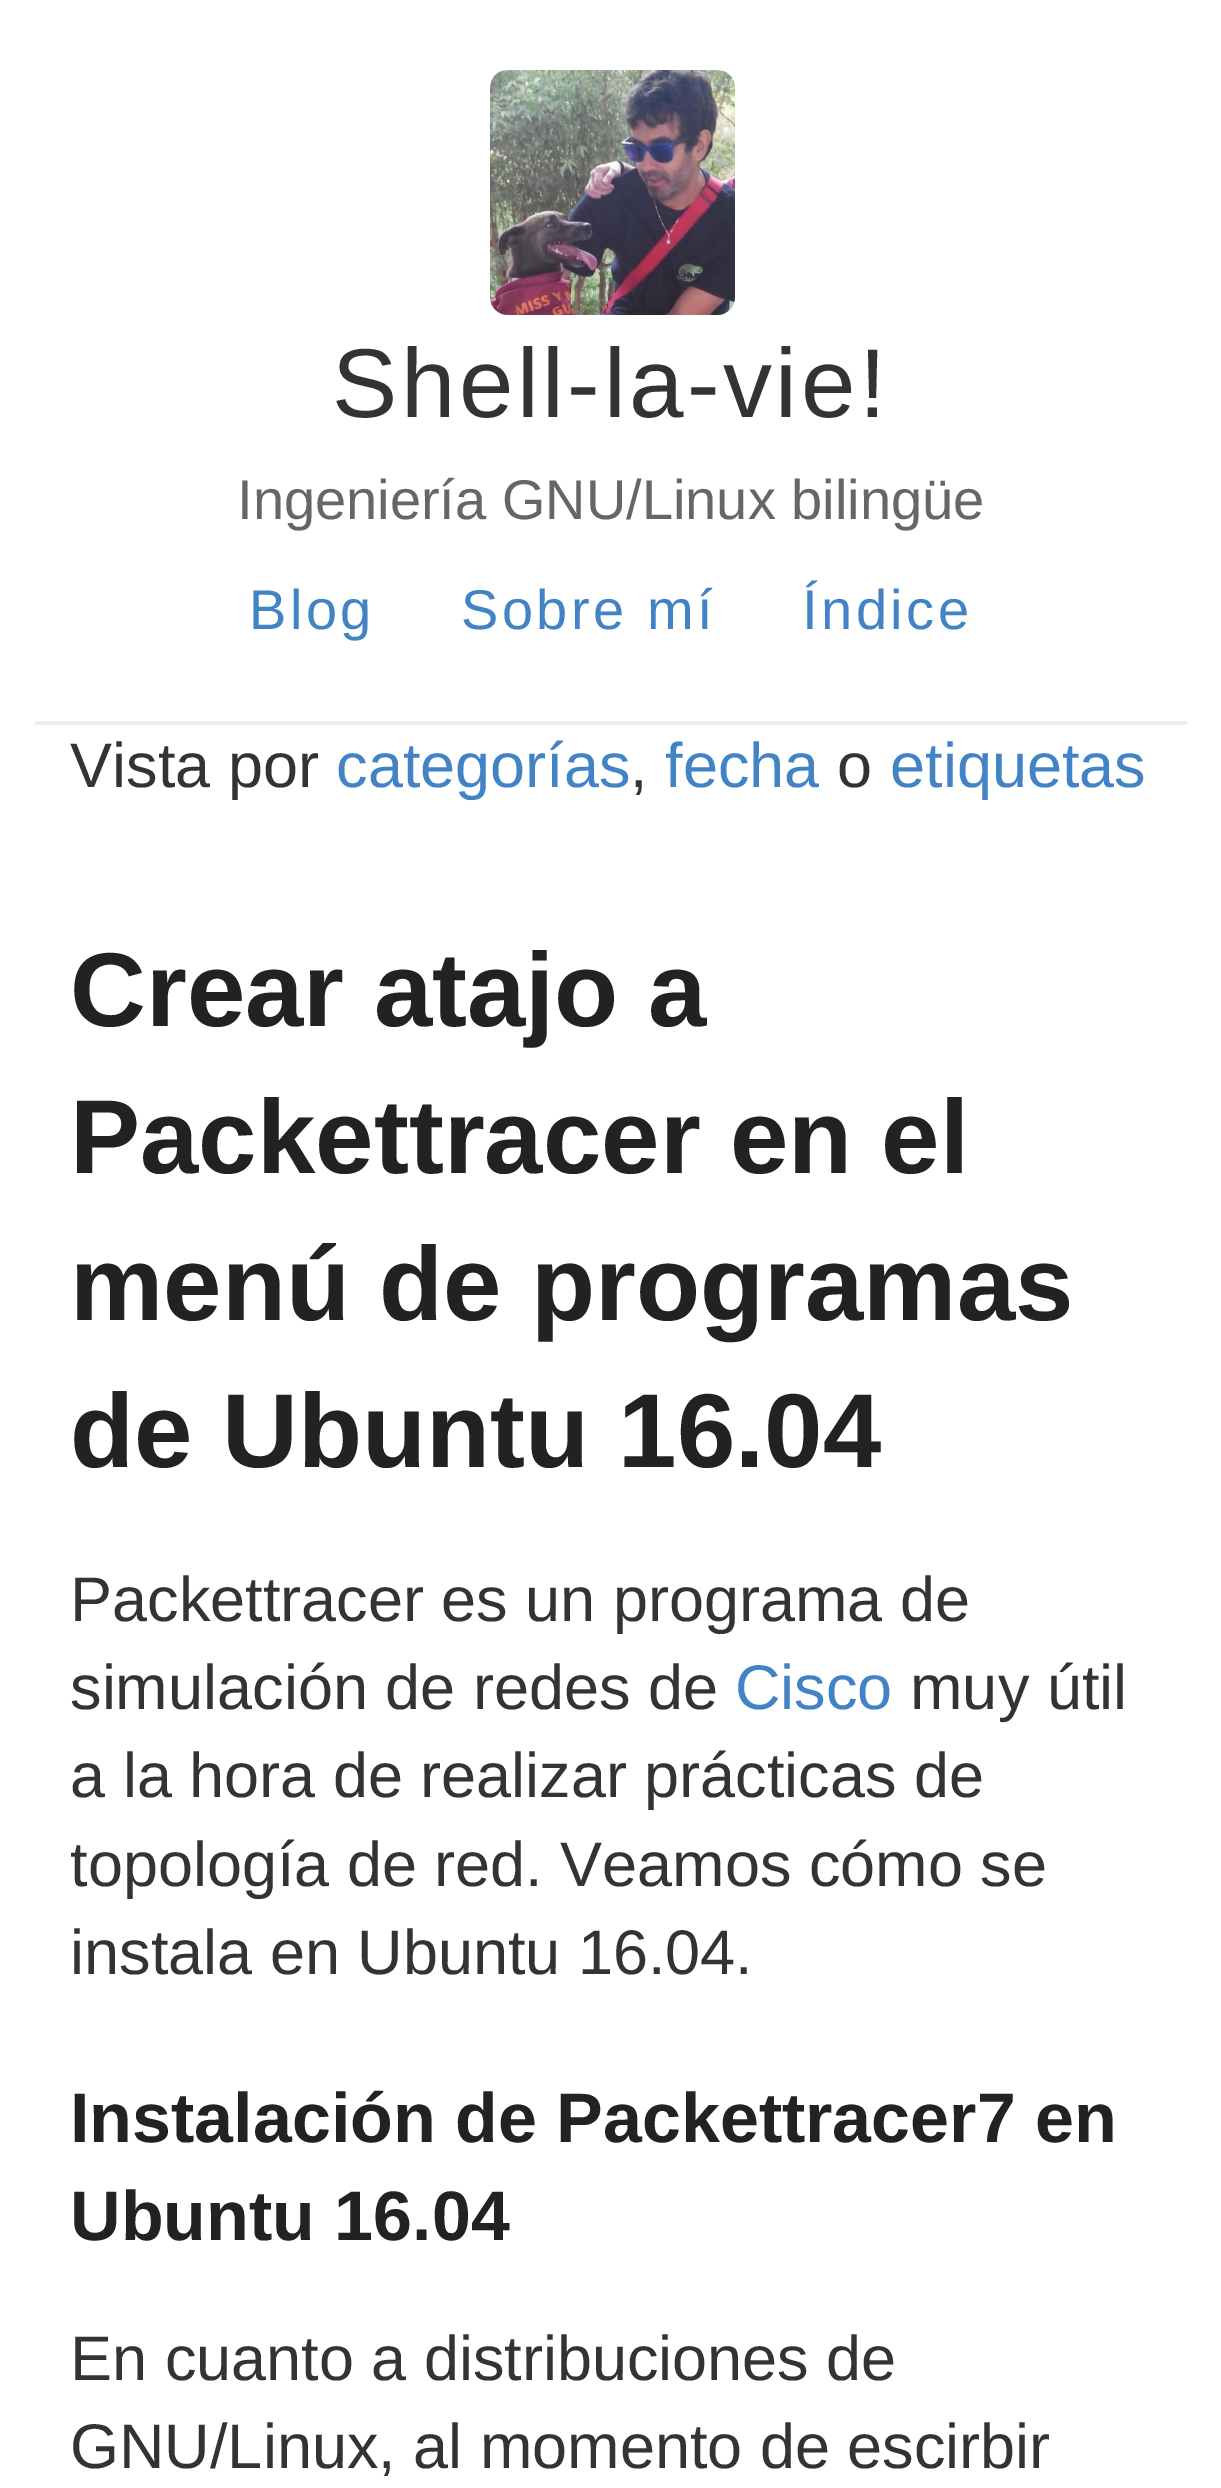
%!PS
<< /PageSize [1221 2488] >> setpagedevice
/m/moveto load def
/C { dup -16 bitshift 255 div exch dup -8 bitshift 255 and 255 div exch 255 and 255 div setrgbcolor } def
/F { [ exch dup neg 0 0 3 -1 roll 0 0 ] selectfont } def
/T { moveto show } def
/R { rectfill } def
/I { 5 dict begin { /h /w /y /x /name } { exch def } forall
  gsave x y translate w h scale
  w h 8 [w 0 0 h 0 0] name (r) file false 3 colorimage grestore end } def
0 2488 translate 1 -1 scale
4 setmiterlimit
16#FFFFFF C
0 0 1221 2488 R
16#EEEEEE C
35 721 1152 4 R
(1.rgb) 490 70 245 245 I
/LiberationSans-Regular 98 F
16#333333 C
332 417 m 3.5 0 (Shell-la-vie!) ashow
/LiberationSans-Regular 56 F
16#666666 C
(Ingeniería GNU/Linux bilingüe) 237 519 T
16#4183C4 C
249 629 m 3.5 0 (Blog) ashow
461 629 m 3.5 0 (Sobre mí) ashow
802 629 m 3.5 0 (Índice) ashow
/LiberationSans-Regular 63 F
16#333333 C
(Vista por) 70 787 T
16#4183C4 C
(categorías) 336 787 T
16#333333 C
(,) 630 787 T
16#4183C4 C
(fecha) 665 787 T
16#333333 C
(o) 837 787 T
16#4183C4 C
(etiquetas) 890 787 T
/LiberationSans-Bold 105 F
16#222222 C
(Crear atajo a) 70 1026 T
(Packettracer en el) 70 1173 T
(menú de programas) 70 1320 T
(de Ubuntu 16.04) 70 1467 T
/LiberationSans-Regular 63 F
16#333333 C
(Packettracer es un programa de) 70 1621 T
(simulación de redes de) 70 1709 T
16#4183C4 C
(Cisco) 735 1709 T
16#333333 C
(muy útil) 910 1709 T
(a la hora de realizar prácticas de) 70 1797 T
(topología de red. Veamos cómo se) 70 1886 T
(instala en Ubuntu 16.04.) 70 1974 T
/LiberationSans-Bold 70 F
16#222222 C
(Instalación de Packettracer7 en) 70 2142 T
(Ubuntu 16.04) 70 2240 T
/LiberationSans-Regular 63 F
16#333333 C
(En cuanto a distribuciones de) 70 2380 T
(GNU/Linux, al momento de escirbir) 70 2468 T
showpage
